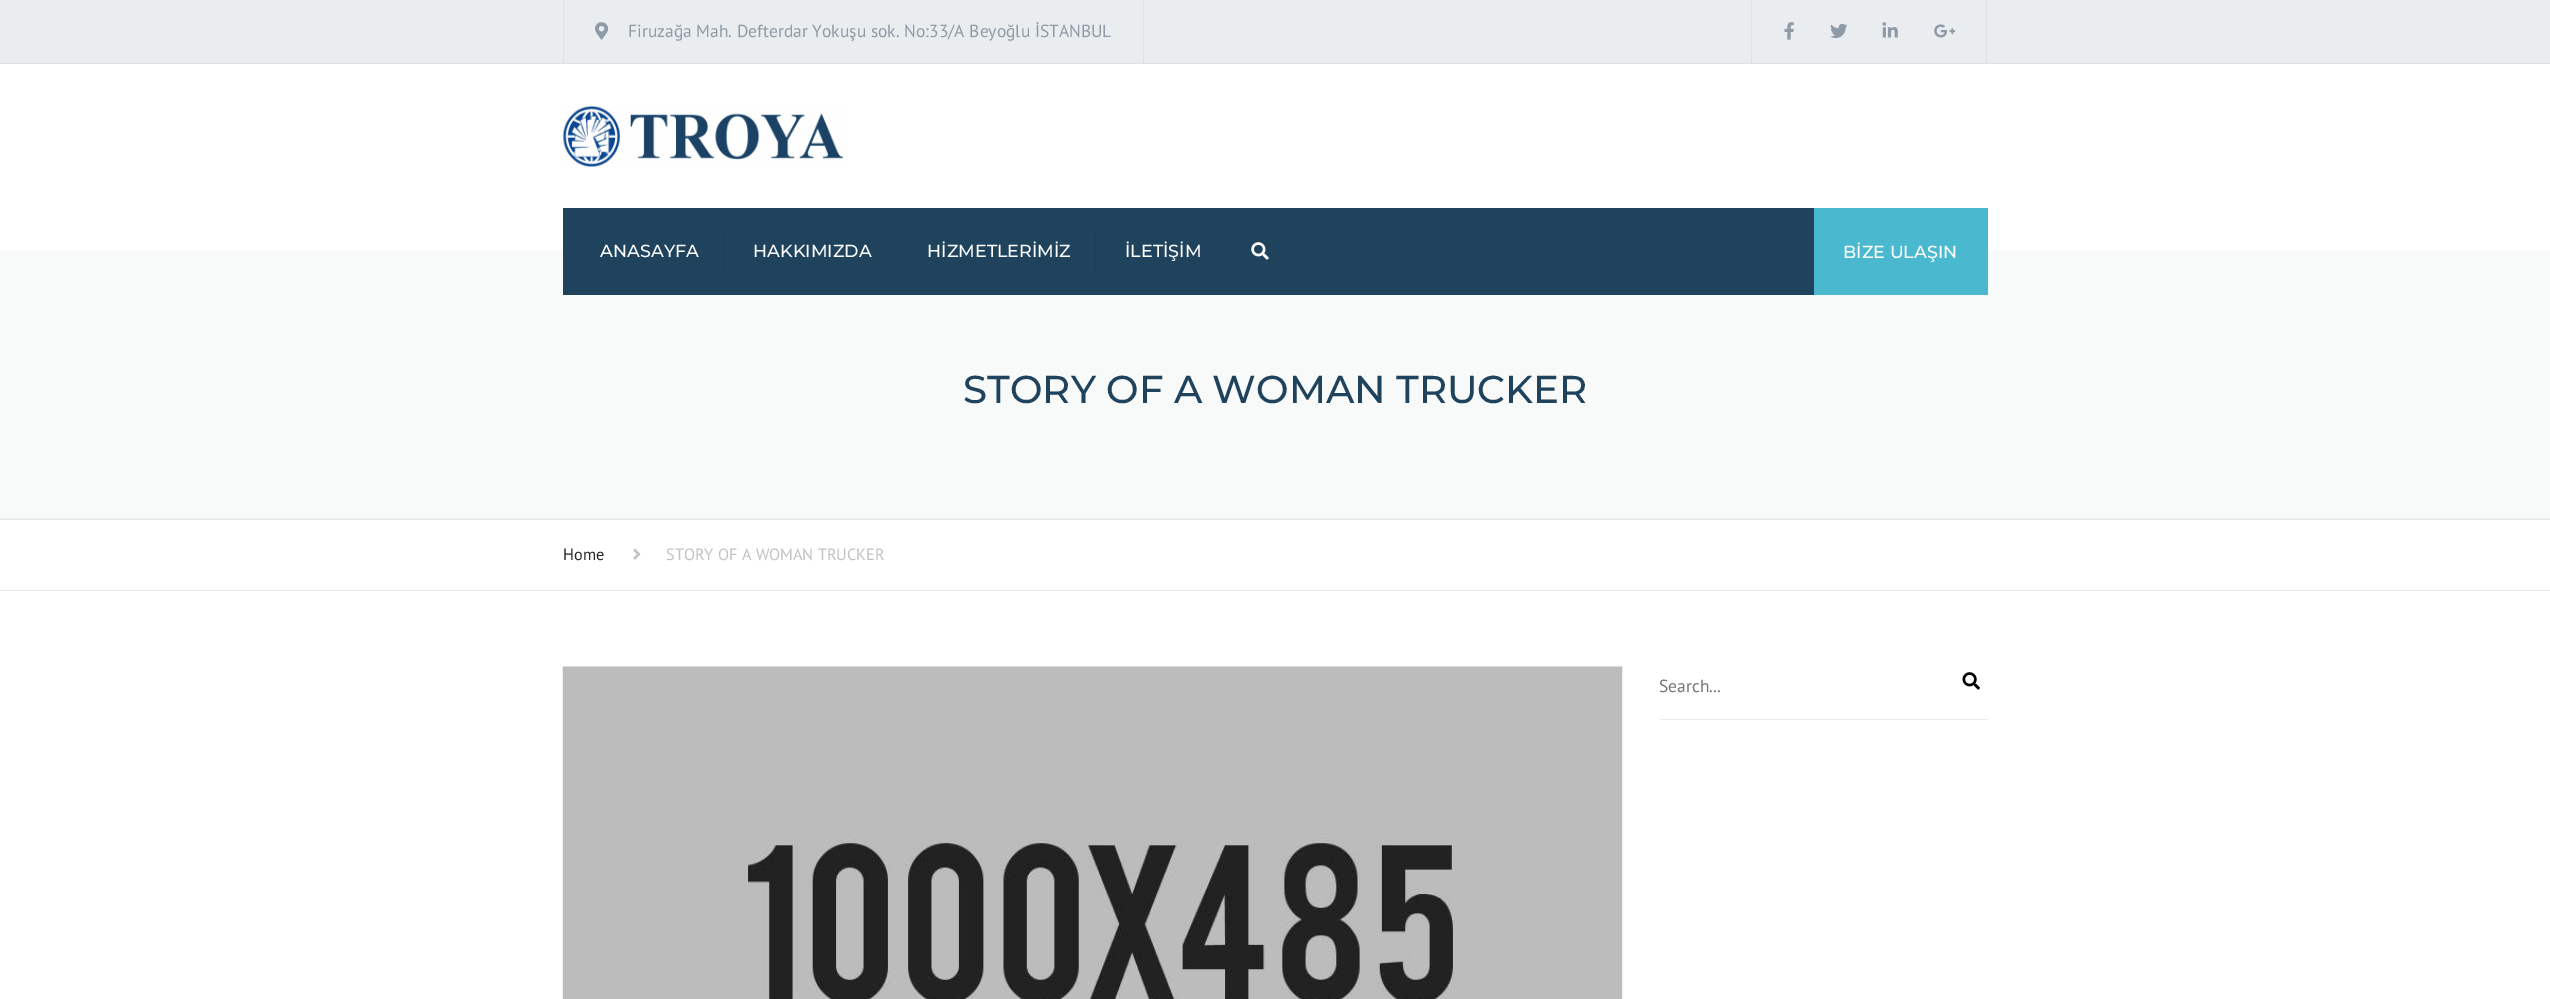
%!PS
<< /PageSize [2550 999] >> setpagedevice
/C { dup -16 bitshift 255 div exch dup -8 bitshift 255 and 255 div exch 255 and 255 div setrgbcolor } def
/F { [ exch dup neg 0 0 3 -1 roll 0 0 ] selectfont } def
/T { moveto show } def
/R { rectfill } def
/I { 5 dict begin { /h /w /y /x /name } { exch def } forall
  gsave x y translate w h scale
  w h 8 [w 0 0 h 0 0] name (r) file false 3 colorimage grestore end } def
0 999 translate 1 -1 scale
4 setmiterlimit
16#FFFFFF C
0 0 2550 999 R
16#EAEDF0 C
0 0 2550 63 R
16#DEE1E4 C
0 63 2550 1 R
1143 0 1 63 R
563 0 1 63 R
(1.rgb) 595 22 14 18 I
/PTSans-Regular 17.5 F
16#8E9BA7 C
(Firuzağa Mah. Defterdar Yokuşu sok. No:33/A Beyoğlu İSTANBUL) 628 37 T
16#DEE1E4 C
1986 0 1 63 R
1751 0 1 63 R
(2.rgb) 1784 22 10 18 I
(3.rgb) 1830 23 18 15 I
(4.rgb) 1882 22 16 16 I
(5.rgb) 1934 24 22 14 I
(6.rgb) 562 105 281 62 I
16#F8F9F9 C
0 251 2550 267 R
16#1F425D C
563 208 1251 87 R
/Montserrat-Medium 17.5 F
16#FFFFFF C
(ANASAYFA) 600 257 T
16#1D3F58 C
724 228 1 47 R
16#FFFFFF C
(HAKKIMIZDA) 753 257 T
16#1D3F58 C
898 228 1 47 R
16#FFFFFF C
(HİZMETLERİMİZ) 927 257 T
16#1D3F58 C
1095 228 1 47 R
16#FFFFFF C
(İLETİŞİM) 1125 257 T
16#1D3F58 C
1226 228 1 47 R
(7.rgb) 1251 242 18 18 I
16#4AB9CF C
1814 208 174 87 R
16#FFFFFF C
(BİZE ULAŞIN) 1843 258 T
16#EEEEEE C
0 518 2550 1 R
/Montserrat-Medium 38.75 F
16#1F425D C
(STORY OF A WOMAN TRUCKER) 963 403 T
16#E7E7E7 C
0 519 2550 1 R
0 590 2550 1 R
/PTSans-Regular 16.25 F
16#292929 C
(Home) 563 560 T
(8.rgb) 633 548 8 12 I
16#C3C3C3 C
(STORY OF A WOMAN TRUCKER) 666 560 T
(9.rgb) 562 666 1061 333 I
16#EBEBEB C
1660 719 328 1 R
/PTSans-Regular 17.5 F
16#757575 C
(Search...) 1659 692 T
(10.rgb) 1962 672 18 18 I
showpage
